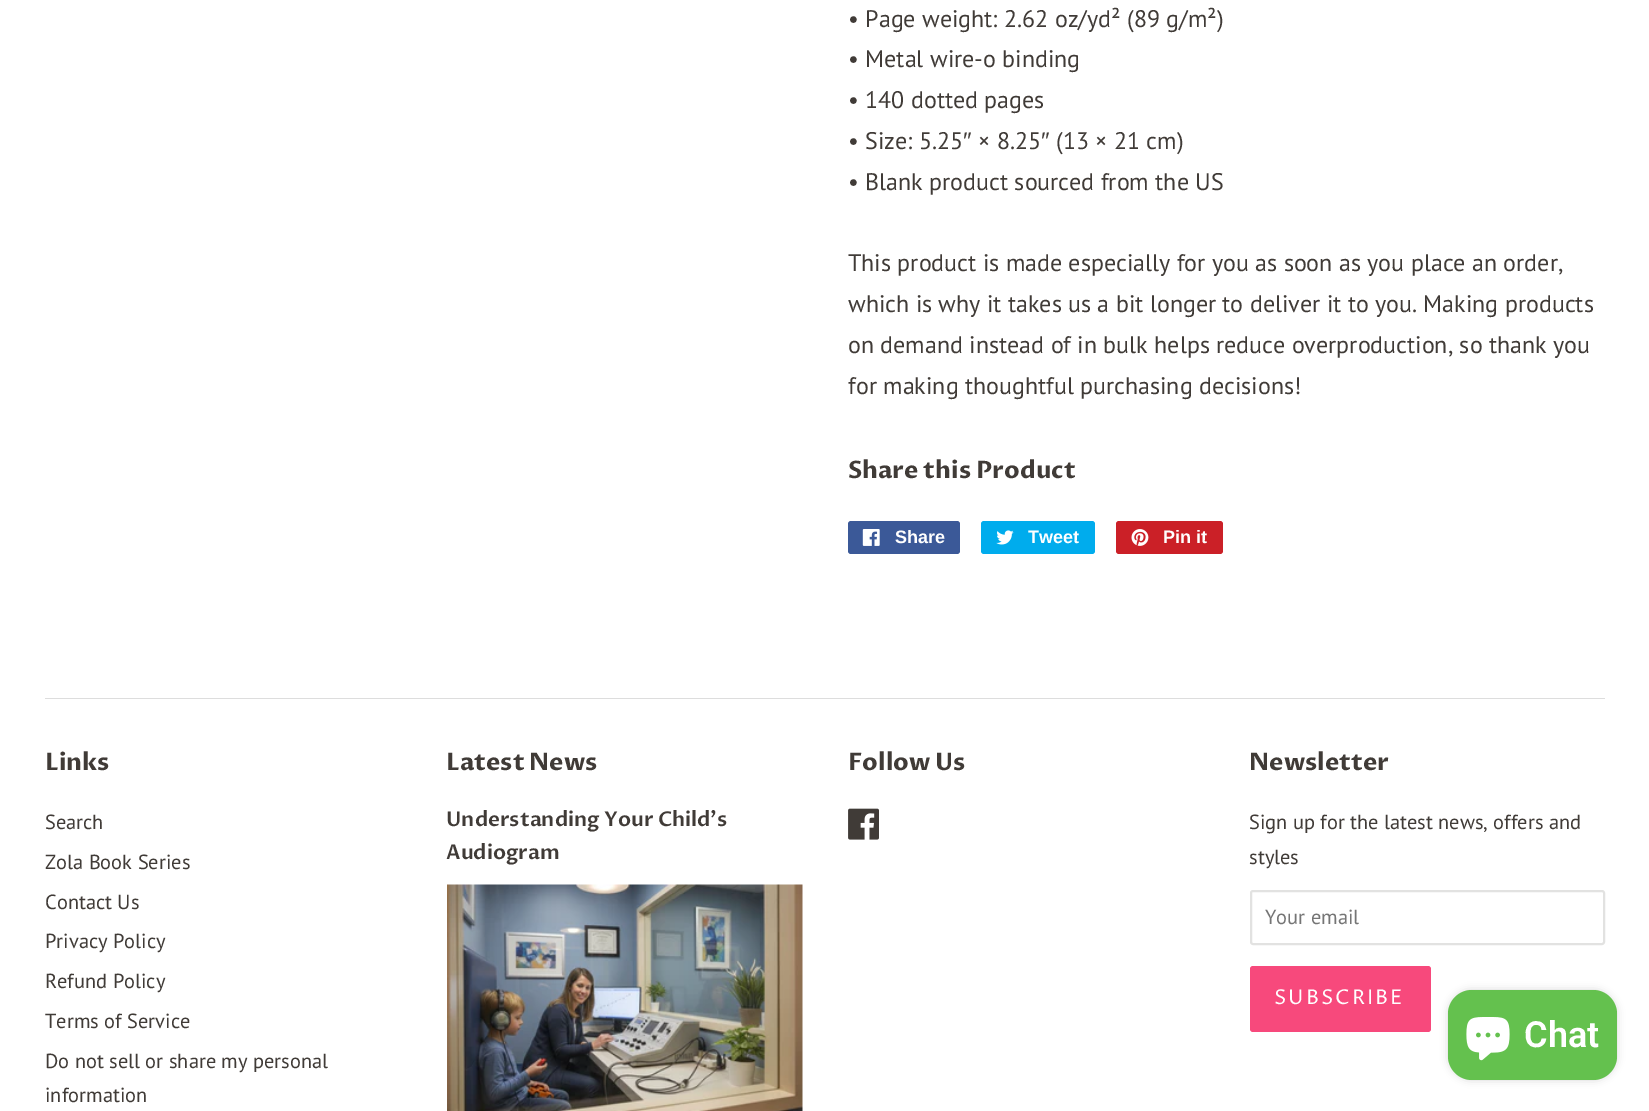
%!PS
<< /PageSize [1649 1111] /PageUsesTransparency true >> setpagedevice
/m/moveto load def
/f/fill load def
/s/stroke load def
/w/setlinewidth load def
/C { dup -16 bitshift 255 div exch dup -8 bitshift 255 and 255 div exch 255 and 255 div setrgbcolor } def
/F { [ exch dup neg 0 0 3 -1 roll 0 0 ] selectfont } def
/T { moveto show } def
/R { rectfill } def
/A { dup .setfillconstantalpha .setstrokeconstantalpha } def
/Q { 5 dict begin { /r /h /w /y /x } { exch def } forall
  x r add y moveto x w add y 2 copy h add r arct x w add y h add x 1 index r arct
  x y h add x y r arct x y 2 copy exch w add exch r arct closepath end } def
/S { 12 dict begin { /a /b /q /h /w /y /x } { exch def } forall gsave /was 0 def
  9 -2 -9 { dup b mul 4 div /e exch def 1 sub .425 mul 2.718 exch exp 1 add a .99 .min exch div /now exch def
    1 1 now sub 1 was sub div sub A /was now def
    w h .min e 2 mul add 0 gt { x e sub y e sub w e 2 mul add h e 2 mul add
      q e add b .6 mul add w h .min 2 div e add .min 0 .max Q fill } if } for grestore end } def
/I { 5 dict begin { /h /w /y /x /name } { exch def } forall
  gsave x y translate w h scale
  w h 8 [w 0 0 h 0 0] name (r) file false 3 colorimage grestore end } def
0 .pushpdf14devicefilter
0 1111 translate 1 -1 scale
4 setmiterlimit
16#FFFFFF C
0 0 1649 1111 R
/PTSans-Regular 24 F
16#403B37 C
(• Page weight: 2.62 oz/yd² \(89 g/m²\)) 848 27 T
(• Metal wire-o binding) 848 67 T
(• 140 dotted pages) 848 108 T
(• Size: 5.25) 848 149 T
/LiberationSans-Regular 24 F
(″) 963 149 T
/PTSans-Regular 24 F
(× 8.25) 978 149 T
/LiberationSans-Regular 24 F
(″) 1041 149 T
/PTSans-Regular 24 F
(\(13 × 21 cm\)) 1056 149 T
(• Blank product sourced from the US) 848 190 T
(This product is made especially for you as soon as you place an order,) 848 271 T
(which is why it takes us a bit longer to deliver it to you. Making products) 848 312 T
(on demand instead of in bulk helps reduce overproduction, so thank you) 848 353 T
(for making thoughtful purchasing decisions!) 848 394 T
/ProzaLibre-Bold 24 F
(Share this Product) 848 478 T
16#3B5998 C
848 521 112 33 3 Q f
(1.rgb) 862 529 18 17 I
/LiberationSans-Bold 18 F
16#FFFFFF C
(Share) 895 543 T
16#00ACED C
981 521 114 33 3 Q f
(2.rgb) 996 530 18 15 I
16#FFFFFF C
(Tweet) 1028 543 T
16#CB2027 C
1116 521 107 33 3 Q f
(3.rgb) 1131 529 18 17 I
16#FFFFFF C
(Pin it) 1163 543 T
16#DDDDDD C
45 698 1560 1 R
/ProzaLibre-Bold 24 F
16#403B37 C
(Links) 45 770 T
/PTSans-Regular 20.4 F
(Search) 45 829 T
(Zola Book Series) 45 869 T
(Contact Us) 45 909 T
(Privacy Policy) 45 948 T
(Refund Policy) 45 988 T
(Terms of Service) 45 1028 T
(Do not sell or share my personal) 45 1068 T
(information) 45 1102 T
/ProzaLibre-Bold 24 F
(Latest News) 446 770 T
/ProzaLibre-SemiBold 20.4 F
(Understanding Your Child's) 446 826 T
(Audiogram) 446 859 T
(4.rgb) 447 884 356 227 I
/ProzaLibre-Bold 24 F
(Follow Us) 848 770 T
(5.rgb) 848 808 31 32 I
(Newsletter) 1249 770 T
/PTSans-Regular 20.4 F
(Sign up for the latest news, offers and) 1249 829 T
(styles) 1249 864 T
16#E2E2E1 C
2 w
1251 891 353 53 2 Q s
16#757575 C
(Your email) 1265 924 T
16#F7497C C
1250 966 181 66 3 Q f
/ProzaLibre-Regular 20.4 F
16#FFFFFF C
1274 1004 m 2 0 (SUBSCRIBE) ashow
16#000000 C
1448 990 169 90 24 4 .15 S
16#64C14E C
1448 990 169 90 24 Q f
(6.rgb) 1466 1017 44 44 I
/Roboto-SemiBold 36 F
16#FFFFFF C
(Chat) 1524 1047 T
.poppdf14devicefilter showpage
